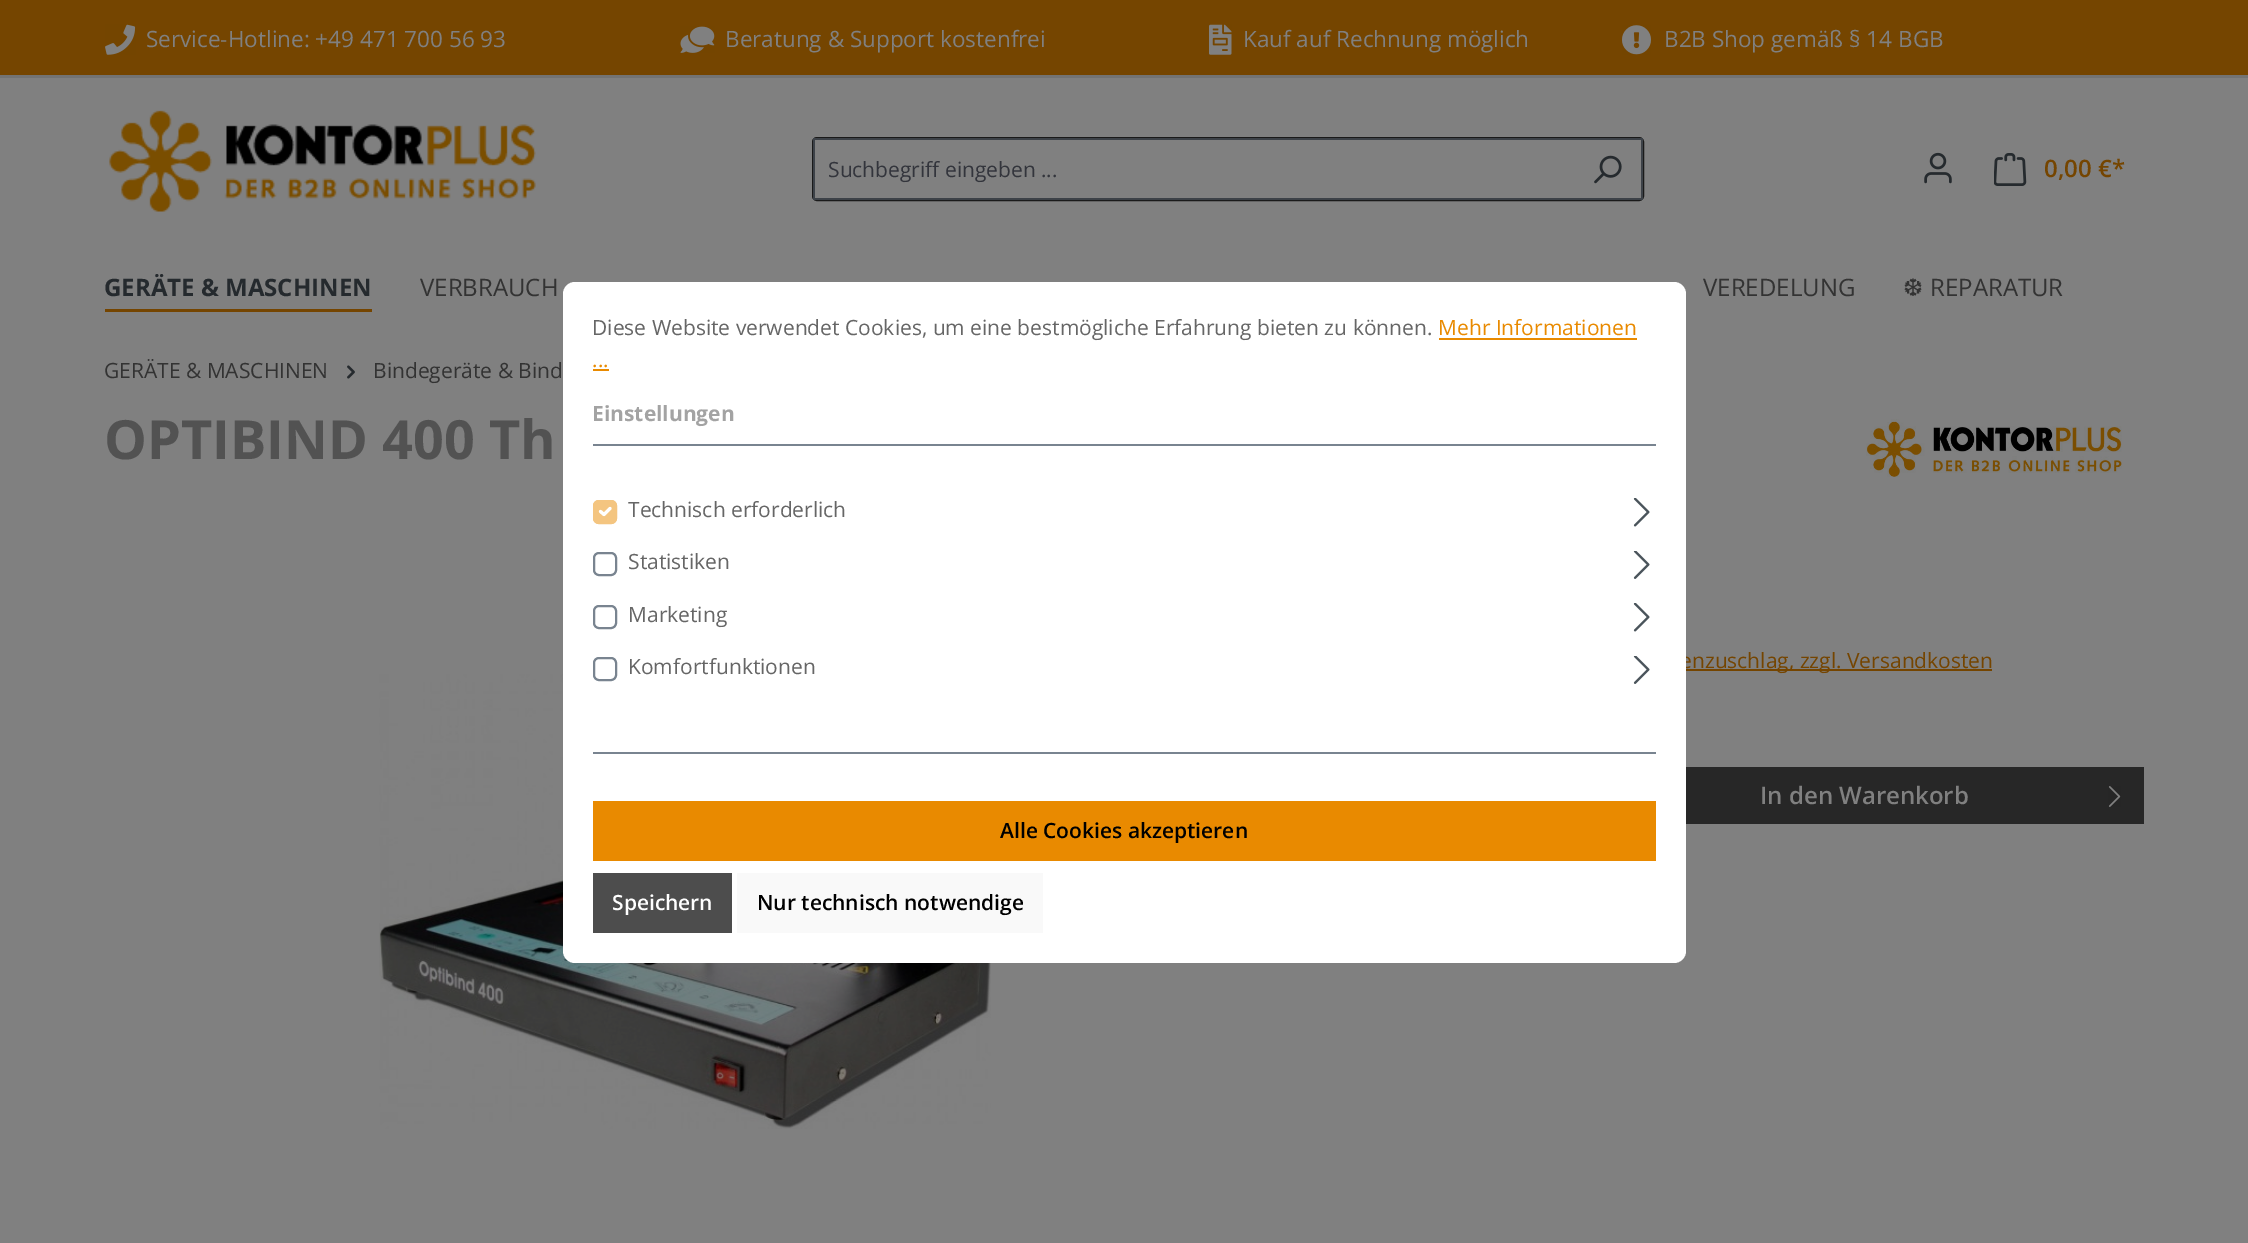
%!PS
<< /PageSize [2248 1243] >> setpagedevice
/m/moveto load def
/l/rlineto load def
/f/fill load def
/s/stroke load def
/w/setlinewidth load def
/C { dup -16 bitshift 255 div exch dup -8 bitshift 255 and 255 div exch 255 and 255 div setrgbcolor } def
/F { [ exch dup neg 0 0 3 -1 roll 0 0 ] selectfont } def
/T { moveto show } def
/R { rectfill } def
/Q { 5 dict begin { /r /h /w /y /x } { exch def } forall
  x r add y moveto x w add y 2 copy h add r arct x w add y h add x 1 index r arct
  x y h add x y r arct x y 2 copy exch w add exch r arct closepath end } def
/I { 5 dict begin { /h /w /y /x /name } { exch def } forall
  gsave x y translate w h scale
  w h 8 [w 0 0 h 0 0] name (r) file false 3 colorimage grestore end } def
0 1243 translate 1 -1 scale
4 setmiterlimit
16#808080 C
0 0 2248 1243 R
16#754500 C
0 0 2248 75 R
16#737373 C
0 75 2248 3 R
(1.rgb) 105 24 31 31 I
/OpenSans-Regular 22.5 F
16#808080 C
(Service-Hotline: +49 471 700 56 93) 146 47 T
(2.rgb) 680 26 35 27 I
(Beratung & Support kostenfrei) 725 47 T
(3.rgb) 1209 24 23 31 I
(Kauf auf Rechnung möglich) 1243 47 T
(4.rgb) 1622 25 29 30 I
(B2B Shop gemäß § 14 BGB) 1664 47 T
(5.rgb) 109 110 427 102 I
16#1A1A1A C
2 w
813 138 830 62 4 Q s
16#3D4248 C
813 138 830 2 R
813 198 761 2 R
813 138 2 62 R
/OpenSans-Regular 21 F
16#33353C C
(Suchbegriff eingeben ...) 828 177 T
16#3D4248 C
1641 138 2 62 R
1572 198 71 2 R
(6.rgb) 1594 155 28 29 I
(7.rgb) 1924 152 28 32 I
(8.rgb) 1994 153 33 33 I
/OpenSans-SemiBold 24 F
16#754500 C
(0,00 €*) 2044 177 T
105 309 267 3 R
/OpenSans-Bold 24 F
16#252A2E C
(GERÄTE & MASCHINEN) 104 296 T
/OpenSans-Regular 24 F
16#333333 C
(VERBRAUCH) 420 296 T
(VEREDELUNG) 1703 296 T
/DejaVuSans-Regular 24 F
(❆) 1903 296 T
/OpenSans-Regular 24 F
(REPARATUR) 1930 296 T
(13.rgb) 379 674 612 455 I
16#754500 C
1686 669 306 2 R
/OpenSans-Regular 21 F
(enzuschlag, zzgl. Versandkosten) 1680 668 T
16#FFFFFF C
563 282 1123 681 12 Q f
16#798490 C
593 444 1063 2 R
16#666666 C
(Diese Website verwendet Cookies, um eine bestmögliche Erfahrung bieten zu können.) 592 335 T
16#E98A00 C
(Mehr Informationen) 1438 335 T
1439 338 198 2 R
(...) 592 367 T
593 369 16 2 R
/OpenSans-Bold 21 F
16#A3A3A3 C
(Einstellungen) 592 421 T
16#798490 C
593 752 1063 2 R
16#F4C580 C
593 500 24 24 6 Q f
16#FFFFFF C
3.1 w
1 setlinecap
1 setlinejoin
600.5 511.5 m 3.5 3 l 6 -6 l s
16#F4C580 C
2 w
0 setlinecap
0 setlinejoin
594 501 22 22 5 Q s
/OpenSans-Regular 21 F
16#666666 C
(Technisch erforderlich) 628 517 T
(9.rgb) 1633 498 17 29 I
16#798490 C
594 553 22 22 5 Q s
16#666666 C
(Statistiken) 628 569 T
(10.rgb) 1633 551 17 28 I
16#798490 C
594 606 22 22 5 Q s
16#666666 C
(Marketing) 628 622 T
(9.rgb) 1633 603 17 29 I
16#798490 C
594 658 22 22 5 Q s
16#666666 C
(Komfortfunktionen) 628 674 T
(10.rgb) 1633 656 17 28 I
16#E98A00 C
593 801 1063 60 R
/OpenSans-SemiBold 21 F
16#000000 C
(Alle Cookies akzeptieren) 1000 838 T
16#4D4D4D C
593 873 139 60 R
16#FFFFFF C
(Speichern) 612 910 T
16#F9F9F9 C
737 873 306 60 R
16#000000 C
(Nur technisch notwendige) 757 910 T
/OpenSans-Regular 21 F
16#333333 C
(GERÄTE & MASCHINEN) 104 378 T
(11.rgb) 347 365 8 14 I
(Bindegeräte & Bind) 373 378 T
/OpenSans-Bold 54 F
16#525252 C
(OPTIBIND 400 Th) 104 459 T
(12.rgb) 1866 419 256 58 I
16#272727 C
1686 767 458 57 R
/OpenSans-SemiBold 24 F
16#808080 C
(In den Warenkorb) 1760 804 T
(14.rgb) 2108 786 13 21 I
showpage
